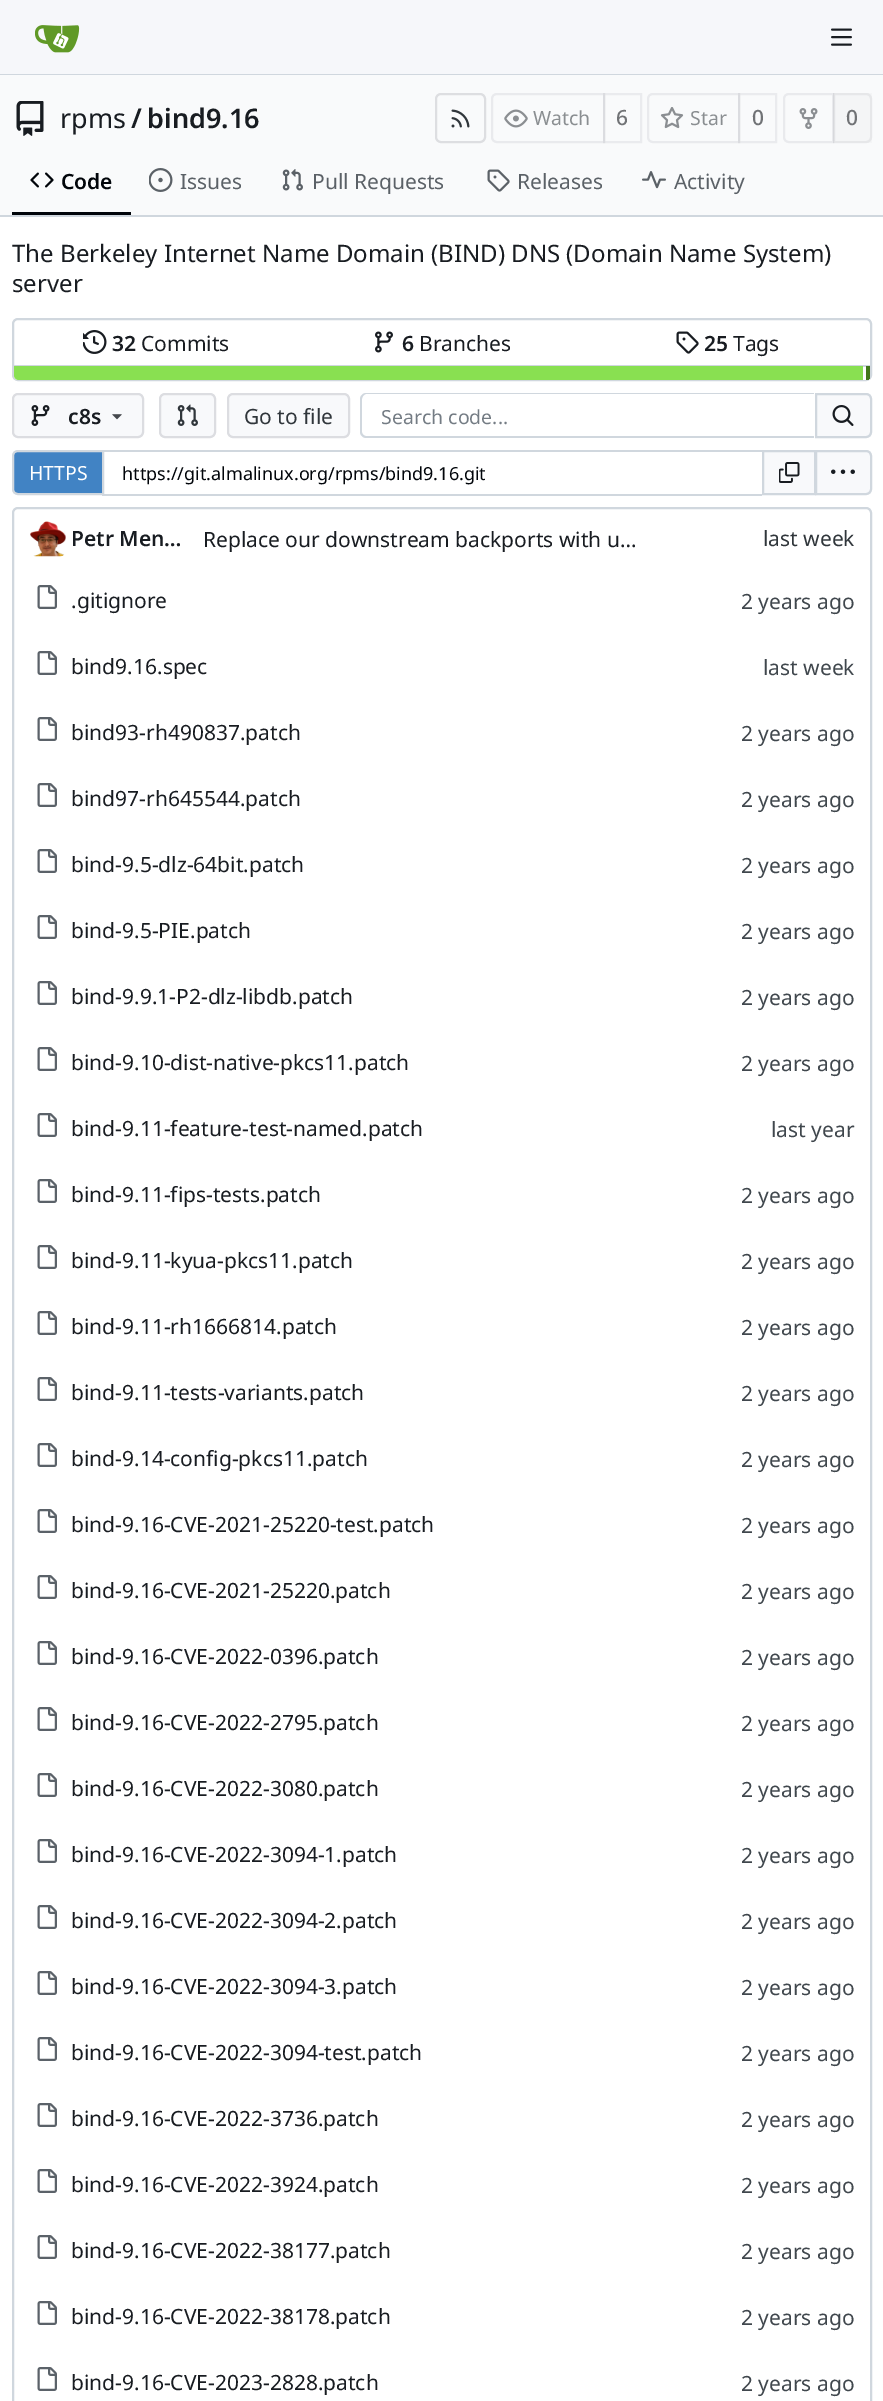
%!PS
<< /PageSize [883 2401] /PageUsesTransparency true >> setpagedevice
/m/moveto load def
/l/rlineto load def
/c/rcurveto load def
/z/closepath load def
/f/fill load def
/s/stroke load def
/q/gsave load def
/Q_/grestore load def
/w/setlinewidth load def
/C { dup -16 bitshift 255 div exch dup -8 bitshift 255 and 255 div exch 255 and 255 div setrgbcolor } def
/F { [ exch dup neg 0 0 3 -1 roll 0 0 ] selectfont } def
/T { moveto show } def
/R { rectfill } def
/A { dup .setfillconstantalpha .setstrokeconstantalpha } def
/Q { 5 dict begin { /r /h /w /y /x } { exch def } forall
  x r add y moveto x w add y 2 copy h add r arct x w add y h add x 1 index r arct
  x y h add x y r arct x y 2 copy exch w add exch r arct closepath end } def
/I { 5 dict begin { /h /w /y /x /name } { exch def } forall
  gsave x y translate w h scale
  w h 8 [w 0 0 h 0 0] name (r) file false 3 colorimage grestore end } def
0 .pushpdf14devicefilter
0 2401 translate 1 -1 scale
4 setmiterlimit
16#FFFFFF C
0 0 883 2401 R
16#F6F7FA C
0 0 883 74 R
16#D0D7DE C
0 74 883 1 R
(1.rgb) 35 25 45 28 I
(2.rgb) 831 28 21 18 I
16#F9FAFB C
0 75 883 140 R
(3.rgb) 16 101 28 35 I
/NotoSans-Regular 27 F
16#181C21 C
(rpms) 60 128 T
/NotoSans-SemiBold 27 F
(/) 131 128 T
(bind9.16) 147 128 T
16#DDDEE1 C
2 w
436 94 49 48 5 Q s
(4.rgb) 451 109 19 19 I
16#E9EAED C
497 94 m 107 0 l 0 48 l -107 0 l -3 0 -5 -2 -5 -5 c 0 -38 l 0 -3 2 -5 5 -5 c z s
(5.rgb) 504 109 24 19 I
/NotoSans-Regular 19.5 F
16#8A8E91 C
(Watch) 533 125 T
0.06 A
16#000017 C
604 94 37 48 rectstroke
/NotoSans-Medium 21 F
1 A
16#717376 C
(6) 616 125 T
16#E9EAED C
653 94 m 86 0 l 0 48 l -86 0 l -3 0 -5 -2 -5 -5 c 0 -38 l 0 -3 2 -5 5 -5 c z s
(6.rgb) 660 107 24 22 I
/NotoSans-Regular 19.5 F
16#8A8E91 C
(Star) 690 125 T
0.06 A
16#000017 C
739 94 37 48 rectstroke
/NotoSans-Medium 21 F
1 A
16#717376 C
(0) 752 125 T
16#E9EAED C
789 94 m 44 0 l 0 48 l -44 0 l -3 0 -5 -2 -5 -5 c 0 -38 l 0 -3 2 -5 5 -5 c z s
(7.rgb) 799 108 19 21 I
0.04 A
16#707171 C
833 93 39 50 R
0.11 A
16#70717E C
834 94 m 32 0 l 3 0 5 2 5 5 c 0 38 l 0 3 -2 5 -5 5 c -32 0 l z s
1 A
16#717376 C
(0) 846 125 T
16#01050A C
12 212 119 3 R
(8.rgb) 30 172 24 16 I
/NotoSans-SemiBold 21 F
(Code) 61 189 T
(9.rgb) 149 168 24 24 I
/NotoSans-Regular 21 F
16#5B6167 C
(Issues) 180 189 T
(10.rgb) 282 169 21 22 I
(Pull Requests) 312 189 T
(11.rgb) 487 169 23 23 I
(Releases) 517 189 T
(12.rgb) 642 171 24 18 I
(Activity) 674 189 T
16#D0D7DE C
0 215 883 2 R
/NotoSans-Regular 24 F
16#181C21 C
(The Berkeley Internet Name Domain \(BIND\) DNS \(Domain Name System\)) 12 262 T
(server) 12 292 T
16#D0D7DE C
13 319 858 61 5 Q s
(13.rgb) 83 330 24 24 I
/NotoSans-SemiBold 21 F
16#181C21 C
(32) 112 351 T
/NotoSans-Regular 21 F
(Commits) 141 351 T
(14.rgb) 375 331 18 22 I
/NotoSans-SemiBold 21 F
(6) 402 351 T
/NotoSans-Regular 21 F
(Branches) 419 351 T
(15.rgb) 676 331 23 23 I
/NotoSans-SemiBold 21 F
(25) 704 351 T
/NotoSans-Regular 21 F
(Tags) 733 351 T
16#FFFFFF C
14 365 m 856 0 l 0 10 l 0 3 -2 5 -5 5 c -846 0 l -3 0 -5 -2 -5 -5 c z f
16#D0D7DE C
14 365 856 2 R
16#89E051 C
14 366 m 849 0 l 0 14 l -844 0 l -3 0 -5 -2 -5 -5 c z f
q
14 366 m 856 0 l 0 9 l 0 3 -2 5 -5 5 c -846 0 l -3 0 -5 -2 -5 -5 c z clip newpath
16#427819 C
866 366 4 14 R
Q_
16#F8F9FB C
13 394 130 43 5 Q q f Q_
16#DCDDE1 C
s
(16.rgb) 31 405 19 21 I
/NotoSans-SemiBold 21 F
16#181C21 C
(c8s) 68 424 T
(17.rgb) 112 414 10 6 I
16#F8F9FB C
160 394 55 43 5 Q q f Q_
16#DCDDE1 C
s
(18.rgb) 177 404 21 22 I
16#F8F9FB C
228 394 121 43 5 Q q f Q_
16#DCDDE1 C
s
/NotoSans-Regular 21 F
16#30363B C
(Go to file) 244 424 T
16#D0D7DE C
366 393 m 448 0 l 0 45 l -448 0 l -3 0 -6 -3 -6 -6 c 0 -33 l 0 -3 3 -6 6 -6 c z 366 394 m 448 0 l 0 42 l -448 0 l -2 0 -4 -2 -4 -4 c 0 -33 l 0 -2 2 -5 4 -5 c z eofill
/NotoSans-Regular 19.5 F
16#747C84 C
(Search code...) 381 424 T
16#F8F9FB C
816 394 m 50 0 l 3 0 5 2 5 5 c 0 33 l 0 3 -2 5 -5 5 c -50 0 l z q f Q_
16#D0D7DE C
s
(19.rgb) 832 405 22 21 I
16#4183C4 C
18 451 m 85 0 l 0 43 l -85 0 l -3 0 -5 -2 -5 -5 c 0 -33 l 0 -3 2 -5 5 -5 c z q f Q_
16#D0D7DE C
s
16#FFFFFF C
(HTTPS) 29 480 T
16#D0D7DE C
102 450 660 2 R
102 494 660 2 R
/NotoSans-Regular 18 F
16#01050A C
(https://git.almalinux.org/rpms/bind9.16.git) 122 480 T
16#F8F9FB C
763 451 m 52 0 l 0 43 l -52 0 l z q f Q_
16#D0D7DE C
s
(20.rgb) 779 462 21 21 I
16#F8F9FB C
816 451 m 50 0 l 3 0 5 2 5 5 c 0 33 l 0 3 -2 5 -5 5 c -50 0 l z q f Q_
16#D0D7DE C
s
(21.rgb) 831 469 24 5 I
13 508 858 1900 5 Q s
(22.rgb) 30 521 36 36 I
/NotoSans-SemiBold 21 F
16#181C21 C
(Petr Men…) 71 546 T
/NotoSans-Regular 21 F
(Replace our downstream backports with u…) 203 547 T
16#30363B C
(last week) 763 546 T
(23.rgb) 37 585 20 24 I
16#181C21 C
(.gitignore) 71 608 T
16#40474D C
(2 years ago) 741 609 T
(23.rgb) 37 651 20 24 I
16#181C21 C
(bind9.16.spec) 71 674 T
16#40474D C
(last week) 763 675 T
(23.rgb) 37 717 20 24 I
16#181C21 C
(bind93-rh490837.patch) 71 740 T
16#40474D C
(2 years ago) 741 741 T
(23.rgb) 37 783 20 24 I
16#181C21 C
(bind97-rh645544.patch) 71 806 T
16#40474D C
(2 years ago) 741 807 T
(23.rgb) 37 849 20 24 I
16#181C21 C
(bind-9.5-dlz-64bit.patch) 71 872 T
16#40474D C
(2 years ago) 741 873 T
(23.rgb) 37 915 20 24 I
16#181C21 C
(bind-9.5-PIE.patch) 71 938 T
16#40474D C
(2 years ago) 741 939 T
(23.rgb) 37 981 20 24 I
16#181C21 C
(bind-9.9.1-P2-dlz-libdb.patch) 71 1004 T
16#40474D C
(2 years ago) 741 1005 T
(23.rgb) 37 1047 20 24 I
16#181C21 C
(bind-9.10-dist-native-pkcs11.patch) 71 1070 T
16#40474D C
(2 years ago) 741 1071 T
(23.rgb) 37 1113 20 24 I
16#181C21 C
(bind-9.11-feature-test-named.patch) 71 1136 T
16#40474D C
(last year) 771 1137 T
(23.rgb) 37 1179 20 24 I
16#181C21 C
(bind-9.11-fips-tests.patch) 71 1202 T
16#40474D C
(2 years ago) 741 1203 T
(23.rgb) 37 1245 20 24 I
16#181C21 C
(bind-9.11-kyua-pkcs11.patch) 71 1268 T
16#40474D C
(2 years ago) 741 1269 T
(23.rgb) 37 1311 20 24 I
16#181C21 C
(bind-9.11-rh1666814.patch) 71 1334 T
16#40474D C
(2 years ago) 741 1335 T
(23.rgb) 37 1377 20 24 I
16#181C21 C
(bind-9.11-tests-variants.patch) 71 1400 T
16#40474D C
(2 years ago) 741 1401 T
(23.rgb) 37 1443 20 24 I
16#181C21 C
(bind-9.14-config-pkcs11.patch) 71 1466 T
16#40474D C
(2 years ago) 741 1467 T
(23.rgb) 37 1509 20 24 I
16#181C21 C
(bind-9.16-CVE-2021-25220-test.patch) 71 1532 T
16#40474D C
(2 years ago) 741 1533 T
(23.rgb) 37 1575 20 24 I
16#181C21 C
(bind-9.16-CVE-2021-25220.patch) 71 1598 T
16#40474D C
(2 years ago) 741 1599 T
(23.rgb) 37 1641 20 24 I
16#181C21 C
(bind-9.16-CVE-2022-0396.patch) 71 1664 T
16#40474D C
(2 years ago) 741 1665 T
(23.rgb) 37 1707 20 24 I
16#181C21 C
(bind-9.16-CVE-2022-2795.patch) 71 1730 T
16#40474D C
(2 years ago) 741 1731 T
(23.rgb) 37 1773 20 24 I
16#181C21 C
(bind-9.16-CVE-2022-3080.patch) 71 1796 T
16#40474D C
(2 years ago) 741 1797 T
(23.rgb) 37 1839 20 24 I
16#181C21 C
(bind-9.16-CVE-2022-3094-1.patch) 71 1862 T
16#40474D C
(2 years ago) 741 1863 T
(23.rgb) 37 1905 20 24 I
16#181C21 C
(bind-9.16-CVE-2022-3094-2.patch) 71 1928 T
16#40474D C
(2 years ago) 741 1929 T
(23.rgb) 37 1971 20 24 I
16#181C21 C
(bind-9.16-CVE-2022-3094-3.patch) 71 1994 T
16#40474D C
(2 years ago) 741 1995 T
(23.rgb) 37 2037 20 24 I
16#181C21 C
(bind-9.16-CVE-2022-3094-test.patch) 71 2060 T
16#40474D C
(2 years ago) 741 2061 T
(23.rgb) 37 2103 20 24 I
16#181C21 C
(bind-9.16-CVE-2022-3736.patch) 71 2126 T
16#40474D C
(2 years ago) 741 2127 T
(23.rgb) 37 2169 20 24 I
16#181C21 C
(bind-9.16-CVE-2022-3924.patch) 71 2192 T
16#40474D C
(2 years ago) 741 2193 T
(23.rgb) 37 2235 20 24 I
16#181C21 C
(bind-9.16-CVE-2022-38177.patch) 71 2258 T
16#40474D C
(2 years ago) 741 2259 T
(23.rgb) 37 2301 20 24 I
16#181C21 C
(bind-9.16-CVE-2022-38178.patch) 71 2324 T
16#40474D C
(2 years ago) 741 2325 T
(23.rgb) 37 2367 20 24 I
16#181C21 C
(bind-9.16-CVE-2023-2828.patch) 71 2390 T
16#40474D C
(2 years ago) 741 2391 T
.poppdf14devicefilter showpage
